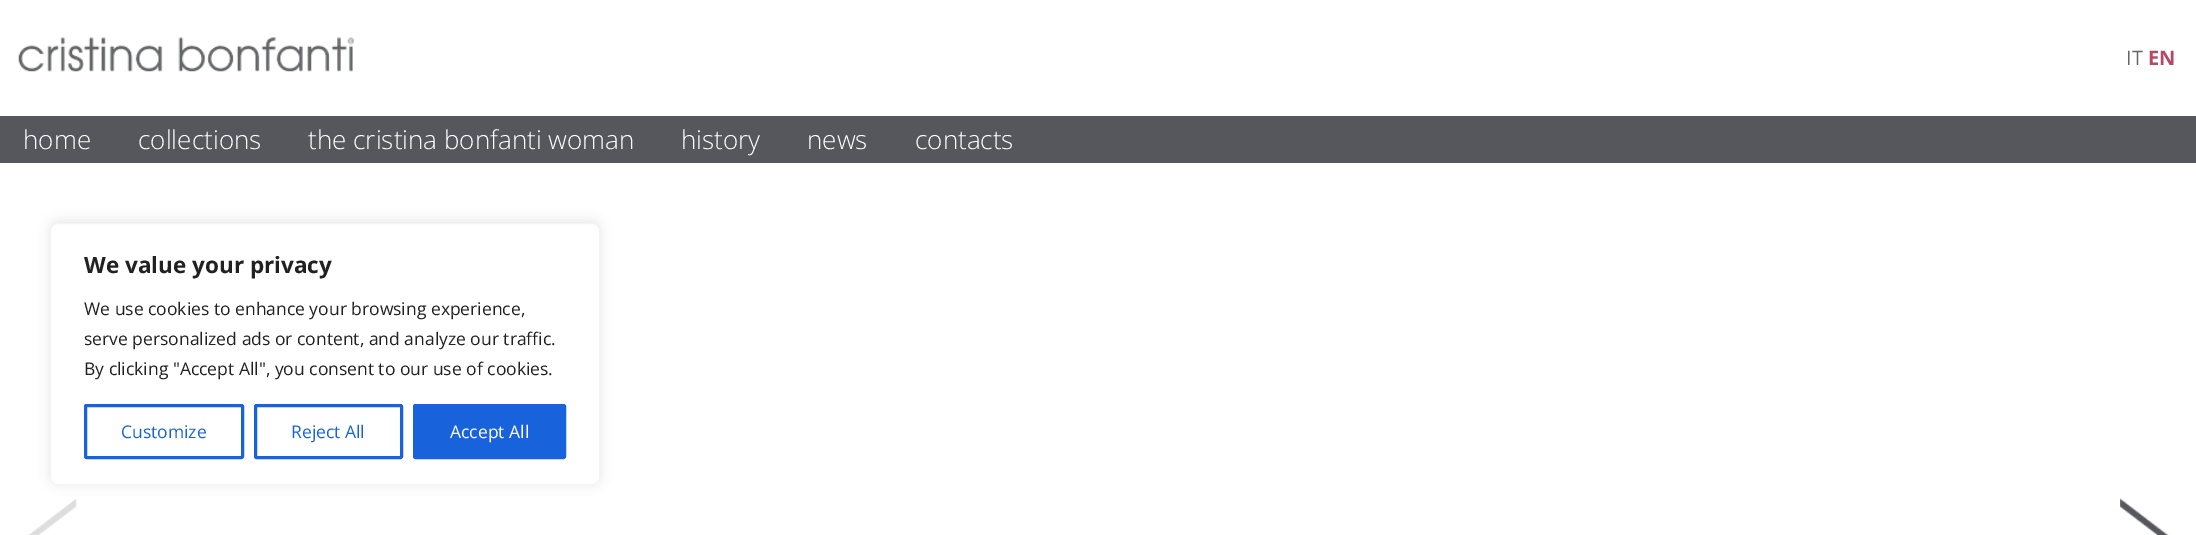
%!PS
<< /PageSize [2196 535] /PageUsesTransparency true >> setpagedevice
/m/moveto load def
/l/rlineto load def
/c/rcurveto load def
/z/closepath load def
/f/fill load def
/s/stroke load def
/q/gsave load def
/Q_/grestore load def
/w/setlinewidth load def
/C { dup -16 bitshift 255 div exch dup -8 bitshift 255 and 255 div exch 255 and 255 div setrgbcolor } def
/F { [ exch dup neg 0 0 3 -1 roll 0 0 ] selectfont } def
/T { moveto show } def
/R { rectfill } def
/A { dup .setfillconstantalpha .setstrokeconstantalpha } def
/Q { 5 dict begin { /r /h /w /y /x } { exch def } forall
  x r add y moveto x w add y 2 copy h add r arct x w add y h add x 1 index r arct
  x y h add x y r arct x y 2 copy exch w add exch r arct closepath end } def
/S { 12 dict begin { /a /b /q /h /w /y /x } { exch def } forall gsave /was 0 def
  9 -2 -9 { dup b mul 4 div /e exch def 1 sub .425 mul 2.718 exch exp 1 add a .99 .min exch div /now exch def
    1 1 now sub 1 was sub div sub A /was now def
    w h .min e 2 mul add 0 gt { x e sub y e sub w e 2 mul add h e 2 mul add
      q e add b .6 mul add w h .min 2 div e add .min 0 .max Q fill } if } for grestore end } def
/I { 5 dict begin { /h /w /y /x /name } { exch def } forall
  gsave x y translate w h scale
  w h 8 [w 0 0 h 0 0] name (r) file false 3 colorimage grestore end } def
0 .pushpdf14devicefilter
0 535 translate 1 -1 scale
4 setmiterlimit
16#FFFFFF C
0 0 2196 535 R
16#55575C C
0 116 2196 47 R
(1.rgb) 18 37 336 35 I
/OpenSans-Regular 20 F
16#666666 C
(IT) 2126 65 T
/OpenSans-Bold 20 F
16#B54A66 C
(EN) 2148 65 T
/OpenSans-Light 26 F
16#FFFFFF C
(home) 23 149 T
(collections) 138 149 T
(the cristina bonfanti woman) 308 149 T
(history) 681 149 T
(news) 807 149 T
(contacts) 915 149 T
(2.rgb) 28 499 49 36 I
(3.rgb) 2120 498 49 37 I
q
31 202 m 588 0 l 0 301 l -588 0 l z 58 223 m 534 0 l 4.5 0 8 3.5 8 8 c 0 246 l 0 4.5 -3.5 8 -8 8 c -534 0 l -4.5 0 -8 -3.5 -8 -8 c 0 -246 l 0 -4.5 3.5 -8 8 -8 c z eoclip newpath
16#ACABAB C
50 221 550 263 8 6 .3 S
Q_
16#F4F4F4 C
50.5 223.5 549 261 7.5 Q s
/OpenSans-Bold 22.5 F
16#212121 C
(We value your privacy) 84 273 T
/OpenSans-Regular 17.5 F
(We use cookies to enhance your browsing experience,) 84 315 T
(serve personalized ads or content, and analyze our traffic.) 84 345 T
(By clicking "Accept All", you consent to our use of cookies.) 84 375 T
16#1863DC C
3 w
85.5 405.5 157 52 1 Q s
(Customize) 121 438 T
255.5 405.5 146 52 1 Q s
(Reject All) 291 438 T
414.5 405.5 150 52 1 Q q f Q_
s
16#FFFFFF C
(Accept All) 450 438 T
.poppdf14devicefilter showpage
